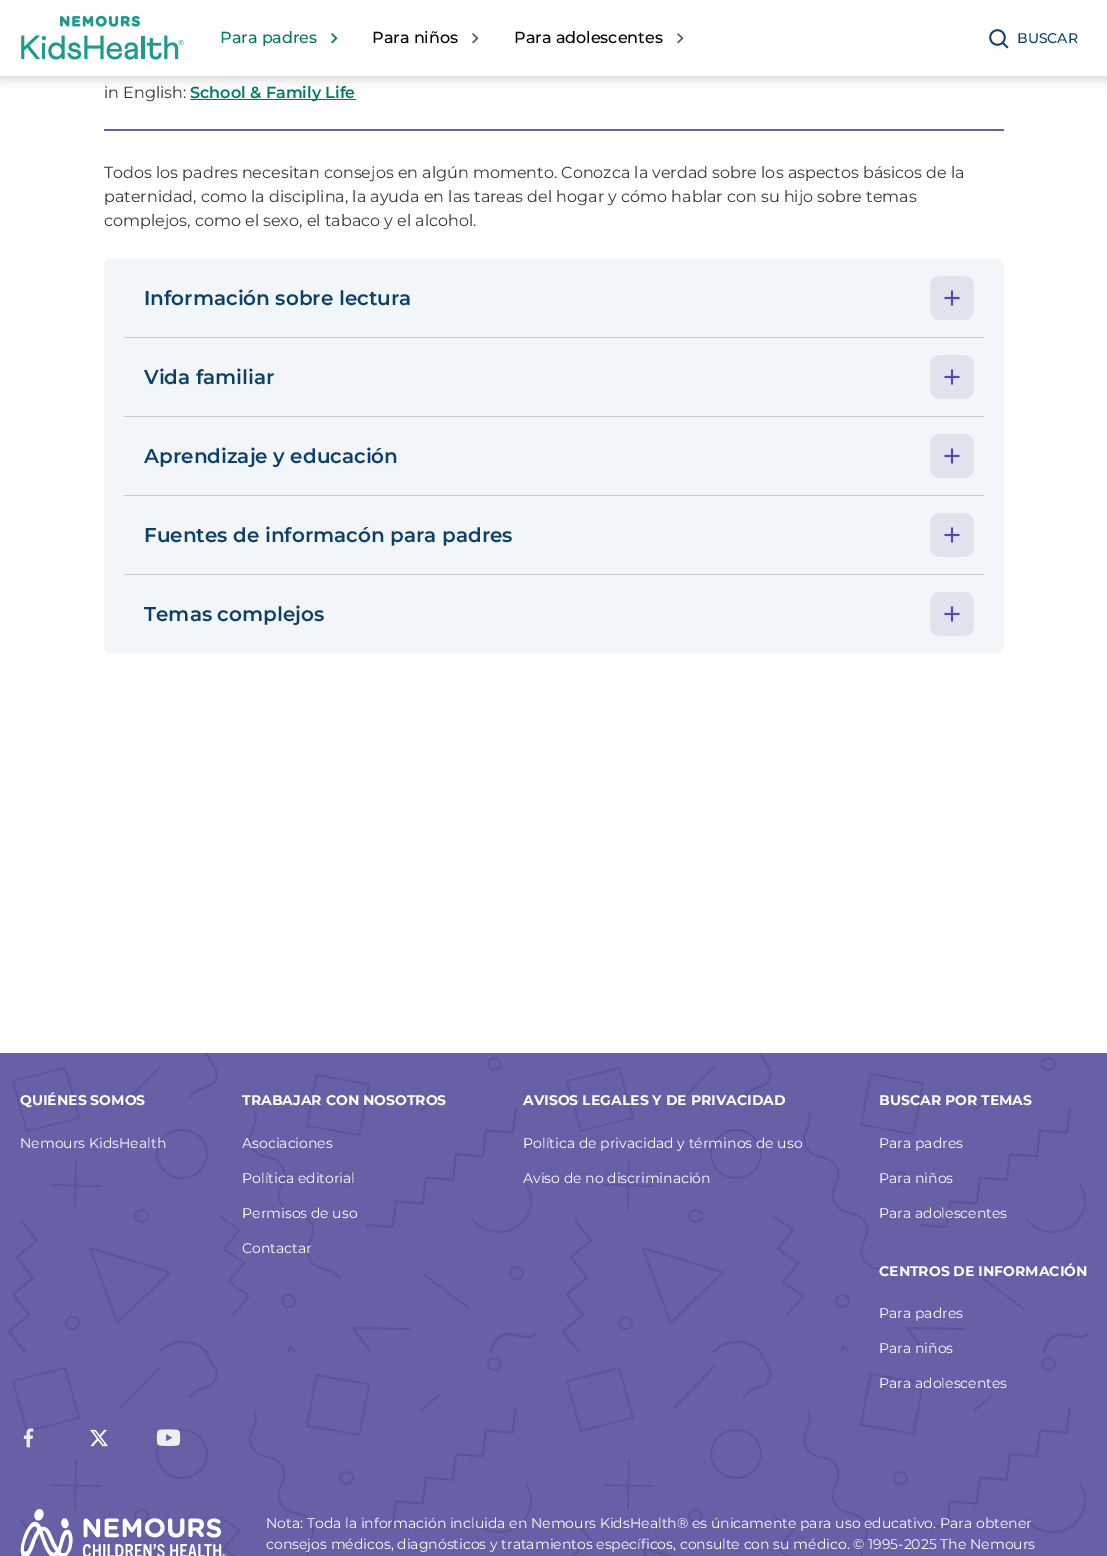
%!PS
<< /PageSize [1107 1556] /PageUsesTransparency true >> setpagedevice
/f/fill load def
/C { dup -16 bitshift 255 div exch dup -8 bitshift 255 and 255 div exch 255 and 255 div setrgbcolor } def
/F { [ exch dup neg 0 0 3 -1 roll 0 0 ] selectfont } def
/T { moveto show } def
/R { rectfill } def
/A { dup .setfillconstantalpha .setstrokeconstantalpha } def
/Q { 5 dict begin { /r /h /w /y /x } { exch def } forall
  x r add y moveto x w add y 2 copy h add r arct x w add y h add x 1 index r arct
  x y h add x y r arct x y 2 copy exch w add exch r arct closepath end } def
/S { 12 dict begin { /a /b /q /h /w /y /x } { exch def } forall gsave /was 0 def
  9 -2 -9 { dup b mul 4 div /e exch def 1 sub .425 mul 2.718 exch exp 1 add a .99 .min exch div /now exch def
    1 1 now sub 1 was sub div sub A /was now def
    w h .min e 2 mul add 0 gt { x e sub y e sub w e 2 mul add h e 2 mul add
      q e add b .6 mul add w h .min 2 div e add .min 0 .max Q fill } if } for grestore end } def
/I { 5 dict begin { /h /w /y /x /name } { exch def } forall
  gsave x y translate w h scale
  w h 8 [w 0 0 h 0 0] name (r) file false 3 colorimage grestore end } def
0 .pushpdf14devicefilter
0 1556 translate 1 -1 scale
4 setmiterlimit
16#FFFFFF C
0 0 1107 1556 R
16#000000 C
0 3 1107 76 0 6 .18 S
16#FFFFFF C
0 0 1107 76 R
(1.rgb) 21 15 163 45 I
(2.rgb) 331 33 7 11 I
/Montserrat-Medium 16 F
16#007A64 C
(Para padres) 220 43 T
(3.rgb) 472 33 7 11 I
16#000000 C
(Para niños) 372 43 T
(3.rgb) 677 33 7 11 I
(Para adolescentes) 514 43 T
(4.rgb) 989 29 20 20 I
/Montserrat-Medium 14 F
16#0D3F6B C
(BUSCAR) 1017 43 T
16#6660A6 C
104 129 900 2 R
/Montserrat-Regular 16 F
16#373A41 C
(in English:) 104 98 T
16#007A64 C
190 99 166 1 R
/Montserrat-SemiBold 16 F
(School & Family Life) 190 98 T
/Montserrat-Regular 16 F
16#373A41 C
(Todos los padres necesitan consejos en algún momento. Conozca la verdad sobre los aspectos básicos de la) 104 178 T
(paternidad, como la disciplina, la ayuda en las tareas del hogar y cómo hablar con su hijo sobre temas) 104 202 T
(complejos, como el sexo, el tabaco y el alcohol.) 104 226 T
16#F3F6F9 C
104 259 900 394 8 Q f
/Montserrat-SemiBold 20 F
16#0D3F6B C
(Información sobre lectura) 144 305 T
16#E1E3EF C
930 276 44 44 10 Q f
(5.rgb) 944 290 16 16 I
16#CBCDD1 C
124 337 860 1 R
16#0D3F6B C
(Vida familiar) 144 384 T
16#E1E3EF C
930 355 44 44 10 Q f
(5.rgb) 944 369 16 16 I
16#CBCDD1 C
124 416 860 1 R
16#0D3F6B C
(Aprendizaje y educación) 144 463 T
16#E1E3EF C
930 434 44 44 10 Q f
(5.rgb) 944 448 16 16 I
16#CBCDD1 C
124 495 860 1 R
16#0D3F6B C
(Fuentes de informacón para padres) 144 542 T
16#E1E3EF C
930 513 44 44 10 Q f
(5.rgb) 944 527 16 16 I
16#CBCDD1 C
124 574 860 1 R
16#0D3F6B C
(Temas complejos) 144 621 T
16#E1E3EF C
930 592 44 44 10 Q f
(5.rgb) 944 606 16 16 I
16#6660A6 C
0 1053 1107 503 R
(6.rgb) 8 1053 1082 503 I
/Montserrat-Bold 14 F
16#FFFFFF C
(QUIÉNES SOMOS) 20 1105 T
/Montserrat-Regular 14 F
(Nemours KidsHealth) 20 1148 T
/Montserrat-Bold 14 F
(TRABAJAR CON NOSOTROS) 242 1105 T
/Montserrat-Regular 14 F
(Asociaciones) 242 1148 T
(Política editorial) 242 1183 T
(Permisos de uso) 242 1218 T
(Contactar) 242 1253 T
/Montserrat-Bold 14 F
(AVISOS LEGALES Y DE PRIVACIDAD) 523 1105 T
/Montserrat-Regular 14 F
(Política de privacidad y términos de uso) 523 1148 T
(Aviso de no discriminación) 523 1183 T
/Montserrat-Bold 14 F
(BUSCAR POR TEMAS) 879 1105 T
/Montserrat-Regular 14 F
(Para padres) 879 1148 T
(Para niños) 879 1183 T
(Para adolescentes) 879 1218 T
/Montserrat-Bold 14 F
(CENTROS DE INFORMACIÓN) 879 1276 T
/Montserrat-Regular 14 F
(Para padres) 879 1318 T
(Para niños) 879 1353 T
(Para adolescentes) 879 1388 T
(7.rgb) 23 1428 11 20 I
(8.rgb) 90 1429 18 18 I
(9.rgb) 156 1429 25 17 I
(10.rgb) 20 1509 206 47 I
(Nota: Toda la información incluida en Nemours KidsHealth® es únicamente para uso educativo. Para obtener) 266 1528 T
(consejos médicos, diagnósticos y tratamientos específicos, consulte con su médico. © 1995-2025 The Nemours) 266 1549 T
.poppdf14devicefilter showpage
